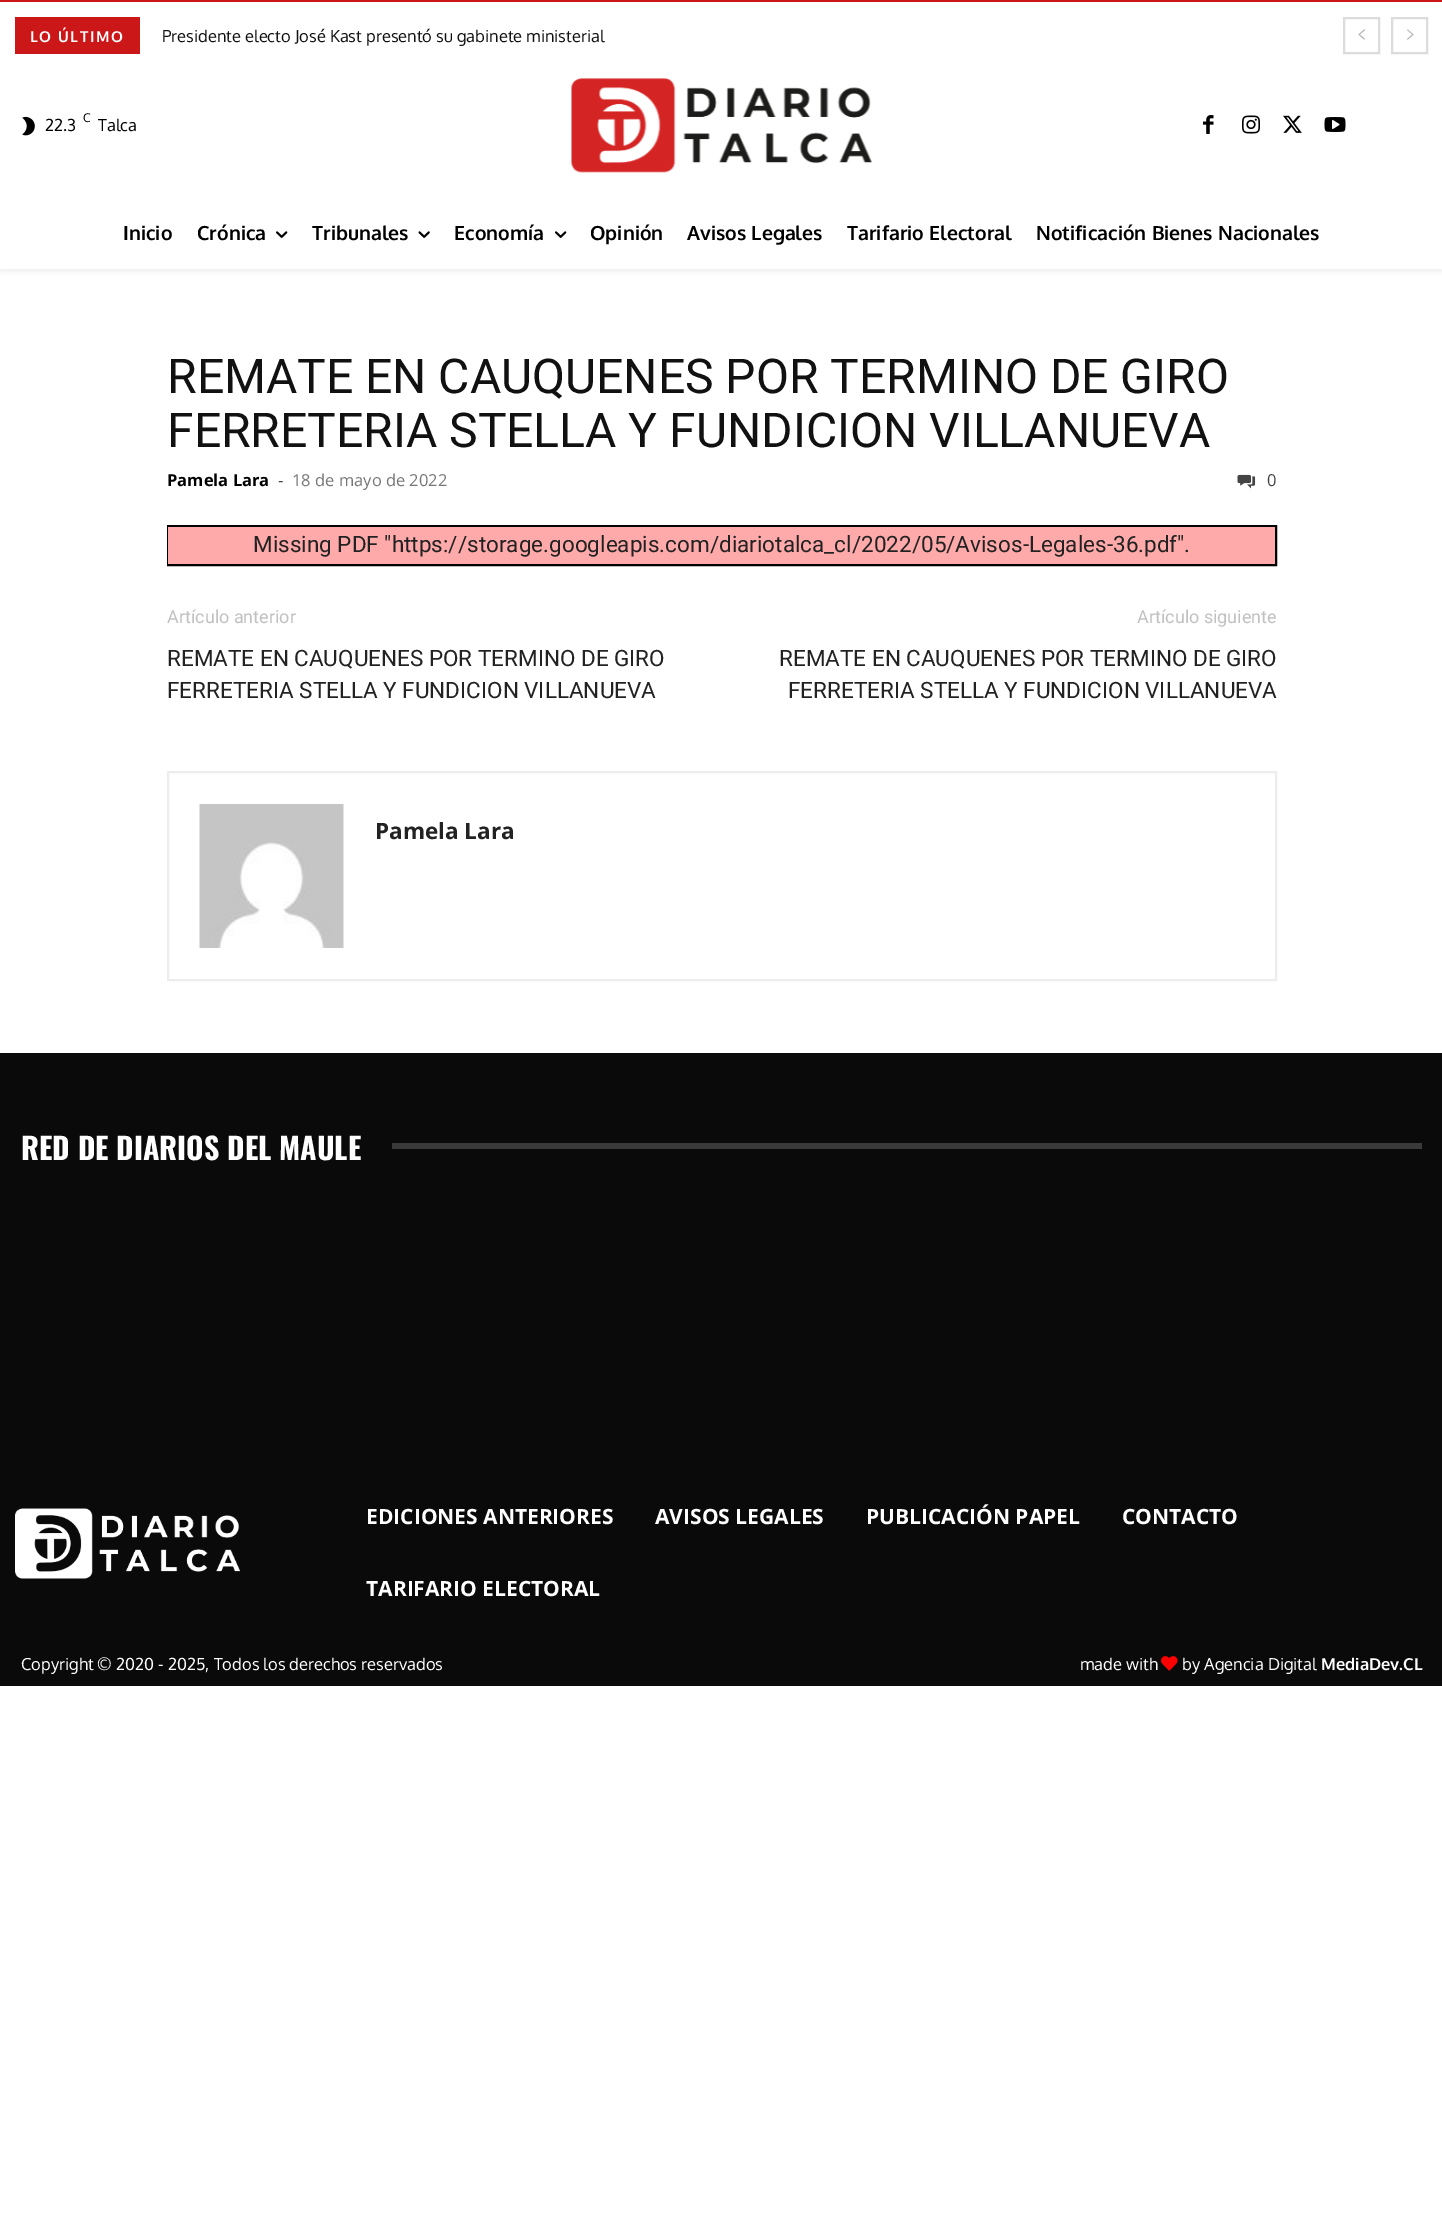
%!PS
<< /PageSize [1442 2219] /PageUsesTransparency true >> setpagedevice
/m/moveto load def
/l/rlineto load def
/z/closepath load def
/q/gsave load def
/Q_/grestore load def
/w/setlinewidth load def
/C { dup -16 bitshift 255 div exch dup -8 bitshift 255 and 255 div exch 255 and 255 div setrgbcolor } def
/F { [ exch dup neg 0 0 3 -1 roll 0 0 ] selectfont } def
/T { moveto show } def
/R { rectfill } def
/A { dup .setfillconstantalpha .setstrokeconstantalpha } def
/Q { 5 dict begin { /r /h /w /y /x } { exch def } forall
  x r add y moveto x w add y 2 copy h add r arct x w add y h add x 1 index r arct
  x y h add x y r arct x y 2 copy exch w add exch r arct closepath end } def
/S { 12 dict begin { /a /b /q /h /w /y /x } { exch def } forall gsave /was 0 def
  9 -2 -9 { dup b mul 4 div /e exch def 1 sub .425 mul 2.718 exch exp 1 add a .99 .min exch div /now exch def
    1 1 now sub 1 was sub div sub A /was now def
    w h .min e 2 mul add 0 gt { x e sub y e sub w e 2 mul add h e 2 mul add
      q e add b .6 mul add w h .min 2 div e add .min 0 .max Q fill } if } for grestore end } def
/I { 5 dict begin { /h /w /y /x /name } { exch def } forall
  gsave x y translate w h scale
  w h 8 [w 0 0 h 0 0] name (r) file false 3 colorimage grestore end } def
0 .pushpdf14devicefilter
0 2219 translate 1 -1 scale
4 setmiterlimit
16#FFFFFF C
0 0 1442 2219 R
16#CC1719 C
0 0 1442 2 R
15 17 125 37 R
/Oxygen-Bold 15 F
16#FFFFFF C
30 42 m 1.5 0 (LO ÚLTIMO) ashow
/Oxygen-Regular 16.5 F
16#111111 C
(Presidente electo José Kast presentó su gabinete ministerial) 162 42 T
16#DCDCDC C
2 w
1344 18 35 35 rectstroke
(1.rgb) 1358 29 7 11 I
1392 18 35 35 rectstroke
(2.rgb) 1407 29 7 11 I
(3.rgb) 22 116 13 20 I
16#000000 C
(22.3) 45 131 T
/Oxygen-Regular 12 F
(C) 83 122 T
/Oxygen-Regular 16.5 F
(Talca) 98 131 T
(4.rgb) 571 78 301 95 I
(5.rgb) 1203 115 11 19 I
(6.rgb) 1242 115 18 19 I
(7.rgb) 1283 115 19 18 I
(8.rgb) 1324 117 22 15 I
q
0 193 m 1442 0 l 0 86 l -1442 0 l z 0 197 m 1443 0 l 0 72 l -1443 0 l z eoclip newpath
0 200 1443 72 0 2 .05 S
Q_
/Oxygen-Bold 19.5 F
(Inicio) 123 240 T
(Crónica) 197 240 T
(9.rgb) 276 231 12 7 I
(Tribunales) 312 240 T
(10.rgb) 418 231 12 7 I
(Economía) 454 240 T
(9.rgb) 555 231 12 7 I
(Opinión) 590 240 T
(Avisos Legales) 687 240 T
(Tarifario Electoral) 847 240 T
(Notificación Bienes Nacionales) 1036 240 T
/Roboto-Regular 48 F
16#111111 C
(REMATE EN CAUQUENES POR TERMINO DE GIRO) 167 393 T
(FERRETERIA STELLA Y FUNDICION VILLANUEVA) 167 447 T
/OpenSans-Bold 16.5 F
16#000000 C
(Pamela Lara) 167 486 T
/OpenSans-Regular 16.5 F
16#444444 C
(-) 278 486 T
16#767676 C
(18 de mayo de 2022) 292 486 T
(11.rgb) 1237 474 19 15 I
16#444444 C
(0) 1267 486 T
16#000000 C
168 526 1108 39 rectstroke
16#FFAAAA C
168 527 1107 37 R
/Roboto-Regular 22.5 F
16#222222 C
(Missing PDF "https://storage.googleapis.com/diariotalca_cl/2022/05/Avisos-Legales-36.pdf".) 253 552 T
/Roboto-Regular 18 F
16#C1C1C1 C
(Artículo anterior) 167 623 T
/Roboto-Regular 22.5 F
16#222222 C
(REMATE EN CAUQUENES POR TERMINO DE GIRO) 167 666 T
(FERRETERIA STELLA Y FUNDICION VILLANUEVA) 167 698 T
/Roboto-Regular 18 F
16#C1C1C1 C
(Artículo siguiente) 1137 623 T
/Roboto-Regular 22.5 F
16#222222 C
(REMATE EN CAUQUENES POR TERMINO DE GIRO) 779 666 T
(FERRETERIA STELLA Y FUNDICION VILLANUEVA) 788 698 T
16#EDEDED C
168 772 1108 208 rectstroke
(12.rgb) 199 804 145 144 I
/OpenSans-Bold 22.5 F
16#222222 C
(Pamela Lara) 375 839 T
16#0A0A0A C
0 1053 1442 633 R
/Oswald-Bold 30 F
16#FFFFFF C
(RED DE DIARIOS DEL MAULE) 21 1160 T
16#3A3A3A C
392 1143 1030 6 R
(13.rgb) 15 1508 225 71 I
/OpenSans-Bold 21 F
16#FFFFFF C
(EDICIONES ANTERIORES) 366 1524 T
(AVISOS LEGALES) 655 1524 T
(PUBLICACIÓN PAPEL) 866 1524 T
(CONTACTO) 1122 1524 T
(TARIFARIO ELECTORAL) 366 1596 T
/Oxygen-Regular 16.5 F
(Copyright © 2020 - 2025, Todos los derechos reservados) 21 1670 T
(made with) 1080 1670 T
(14.rgb) 1161 1656 17 15 I
(by Agencia Digital) 1182 1670 T
/Oxygen-Bold 16.5 F
(MediaDev.CL) 1321 1670 T
.poppdf14devicefilter showpage
